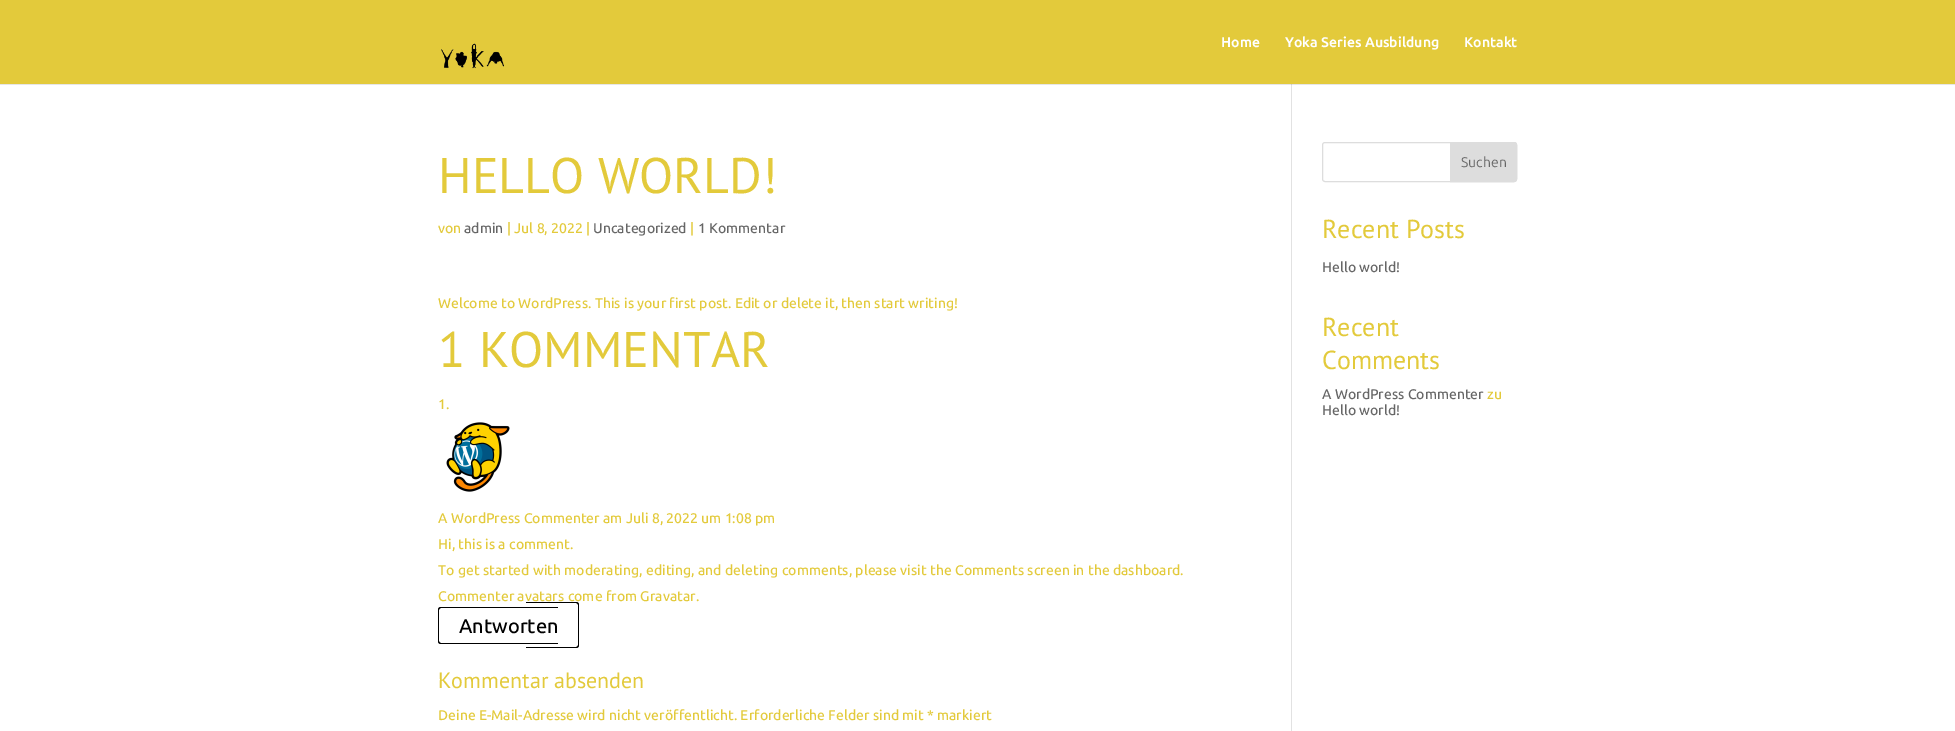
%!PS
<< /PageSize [1955 731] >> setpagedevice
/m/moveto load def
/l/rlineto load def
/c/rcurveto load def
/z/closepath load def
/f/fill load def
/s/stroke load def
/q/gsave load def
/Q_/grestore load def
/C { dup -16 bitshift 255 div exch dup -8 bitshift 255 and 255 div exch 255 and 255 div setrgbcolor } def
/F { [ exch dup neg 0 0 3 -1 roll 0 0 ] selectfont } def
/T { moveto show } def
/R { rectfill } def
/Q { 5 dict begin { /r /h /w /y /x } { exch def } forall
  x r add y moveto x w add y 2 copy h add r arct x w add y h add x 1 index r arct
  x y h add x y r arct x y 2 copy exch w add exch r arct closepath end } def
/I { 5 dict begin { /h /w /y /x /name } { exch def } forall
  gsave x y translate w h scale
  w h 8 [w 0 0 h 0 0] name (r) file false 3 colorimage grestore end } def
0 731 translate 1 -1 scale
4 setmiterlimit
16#FFFFFF C
0 0 1955 731 R
16#E3CA3B C
0 0 1955 84 R
(1.rgb) 441 43 63 26 I
/Ubuntu-Bold 14 F
16#FFFFFF C
(Home) 1221 47 T
(Yoka Series Ausbildung) 1285 47 T
(Kontakt) 1464 47 T
16#E6E6E6 C
0 84 1955 1 R
16#E2E2E2 C
1291 84 1 647 R
16#CBCBCB C
1291 84 1 1 R
/PTSans-Regular 50 F
16#E3CA3B C
(HELLO WORLD!) 438 193 T
/Ubuntu-Medium 14 F
(von) 438 233 T
16#666666 C
(admin) 464 233 T
16#E3CA3B C
(| Jul 8, 2022 |) 507 233 T
16#666666 C
(Uncategorized) 593 233 T
16#E3CA3B C
(|) 690 233 T
16#666666 C
(1 Kommentar) 698 233 T
16#E3CA3B C
(Welcome to WordPress. This is your first post. Edit or delete it, then start writing!) 438 308 T
/PTSans-Regular 50 F
(1 KOMMENTAR) 438 367 T
/Ubuntu-Medium 14 F
(1.) 438 409 T
(2.rgb) 446 422 64 70 I
(A WordPress Commenter am Juli 8, 2022 um 1:08 pm) 438 523 T
(Hi, this is a comment.) 438 549 T
(To get started with moderating, editing, and deleting comments, please visit the Comments screen in the dashboard.) 438 575 T
(Commenter avatars come from Gravatar.) 438 601 T
16#000000 C
441 607 m 117 0 l 0 37 l -117 0 l -2 0 -3 -1 -3 -3 c 0 -31 l 0 -2 1 -3 3 -3 c z 441 608 m 117 0 l 0 35 l -117 0 l -1 0 -2 -1 -2 -2 c 0 -31 l 0 -1 1 -2 2 -2 c z eofill
526 602 m 50 0 l 2 0 3 1 3 3 c 0 40 l 0 2 -1 3 -3 3 c -50 0 l z 526 603 m 50 0 l 1 0 2 1 2 2 c 0 40 l 0 1 -1 2 -2 2 c -50 0 l z eofill
/Ubuntu-Medium 20 F
(Antworten) 459 633 T
/PTSans-Regular 22 F
16#E3CA3B C
(Kommentar absenden) 438 688 T
/Ubuntu-Medium 14 F
(Deine E-Mail-Adresse wird nicht veröffentlicht. Erforderliche Felder sind mit * markiert) 438 720 T
16#DDDDDD C
1322.5 142.5 194 39 2.5 Q s
1450.5 142.5 m 63.5 0 l 1.5 0 2.5 1 2.5 2.5 c 0 34 l 0 1.5 -1 2.5 -2.5 2.5 c -63.5 0 l z q f Q_
s
/Ubuntu-Regular 14 F
16#666666 C
(Suchen) 1461 167 T
/PTSans-Regular 26 F
16#E3CA3B C
(Recent Posts) 1322 238 T
/Ubuntu-Medium 14 F
16#666666 C
(Hello world!) 1322 272 T
/PTSans-Regular 26 F
16#E3CA3B C
(Recent) 1322 336 T
(Comments) 1322 369 T
/Ubuntu-Medium 14 F
16#666666 C
(A WordPress Commenter) 1322 399 T
16#E3CA3B C
(zu) 1487 399 T
16#666666 C
(Hello world!) 1322 415 T
showpage
